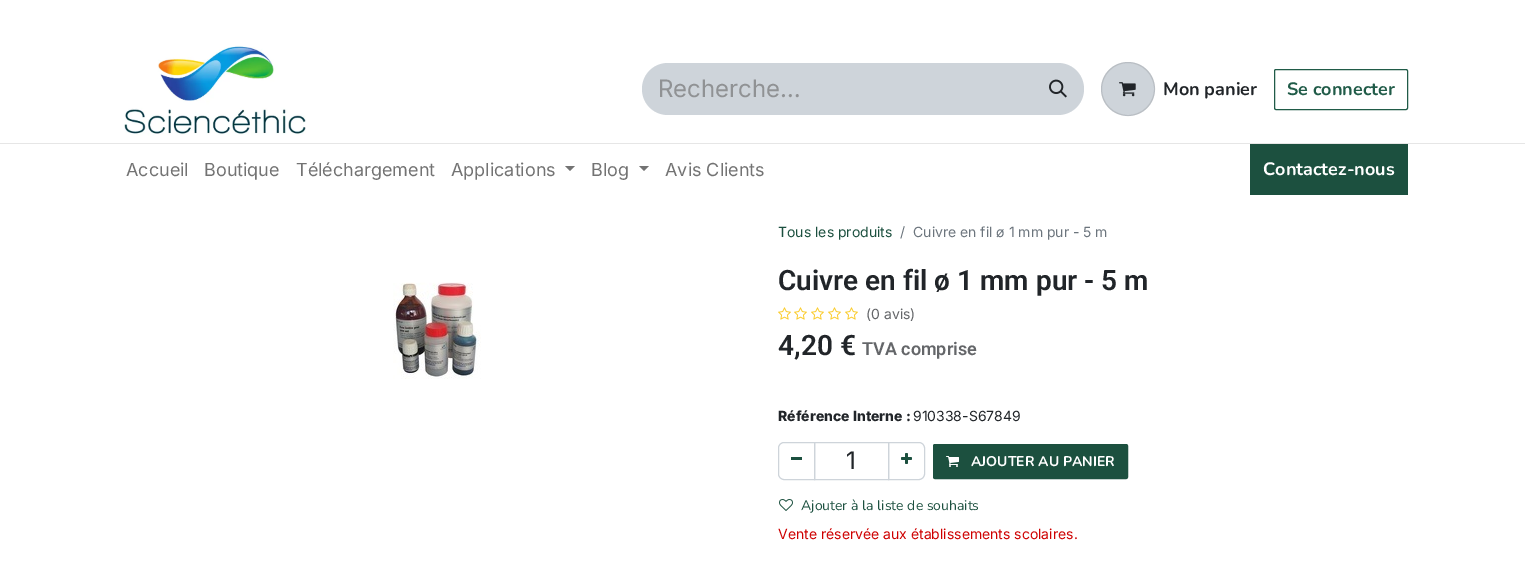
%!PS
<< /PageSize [1525 565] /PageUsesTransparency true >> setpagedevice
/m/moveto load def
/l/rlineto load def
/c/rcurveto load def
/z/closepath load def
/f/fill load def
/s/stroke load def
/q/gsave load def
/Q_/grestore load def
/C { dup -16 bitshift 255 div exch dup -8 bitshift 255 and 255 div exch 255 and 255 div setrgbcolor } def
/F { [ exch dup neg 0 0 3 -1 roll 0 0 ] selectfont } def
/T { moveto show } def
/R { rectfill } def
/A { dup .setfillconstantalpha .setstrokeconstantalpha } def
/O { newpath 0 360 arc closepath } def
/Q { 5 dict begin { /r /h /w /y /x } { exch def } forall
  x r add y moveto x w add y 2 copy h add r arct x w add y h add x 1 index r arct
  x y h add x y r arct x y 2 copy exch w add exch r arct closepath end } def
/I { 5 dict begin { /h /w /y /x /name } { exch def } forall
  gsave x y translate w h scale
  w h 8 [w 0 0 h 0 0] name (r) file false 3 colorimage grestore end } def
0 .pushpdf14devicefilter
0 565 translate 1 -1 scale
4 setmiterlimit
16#FFFFFF C
0 0 1525 565 R
(1.rgb) 124 45 182 91 I
16#CED4DA C
668 63 m 365 0 l 0 52 l -365 0 l -14.5 0 -26 -11.5 -26 -26 c 0 -14.5 11.5 -26 26 -26 c z f
/Inter-Regular 24 F
16#909294 C
(Recherche…) 658 97 T
16#CED4DA C
1032 63 m 26 0 l 14.5 0 26 11.5 26 26 c 0 14.5 -11.5 26 -26 26 c -26 0 l z f
(2.rgb) 1049 79 18 19 I
1128 89 27 O f
0.1 A
16#000000 C
1128 89 26.5 O s
1 A
(3.rgb) 1119 82 17 15 I
/Nunito-Bold 18 F
16#212529 C
(Mon panier) 1163 95 T
16#205B48 C
1274.5 69.5 133 40 1.5 Q s
(Se connecter) 1287 95 T
16#E6E6E6 C
0 143 1525 1 R
/Inter-Regular 18 F
16#737373 C
(Accueil) 126 176 T
(Boutique) 204 176 T
(Téléchargement) 296 176 T
(Applications) 451 176 T
565 166 m 10 0 l -5 5 l z f
(Blog) 591 176 T
639 166 m 10 0 l -5 5 l z f
(Avis Clients) 665 176 T
16#1C503F C
1250 144 158 51 R
/Nunito-Bold 18 F
16#FFFFFF C
(Contactez-nous) 1263 175 T
/Inter-Regular 14 F
16#1C503F C
(Tous les produits) 778 237 T
16#6C757D C
(/) 900 237 T
(Cuivre en fil ø 1 mm pur - 5 m) 913 237 T
(4.rgb) 393 282 88 97 I
/Roboto-SemiBold 28 F
16#212529 C
(Cuivre en fil ø 1 mm pur - 5 m) 778 290 T
(5.rgb) 778 307 13 13 I
(5.rgb) 794 307 13 13 I
(5.rgb) 811 307 13 13 I
(5.rgb) 828 307 13 13 I
(5.rgb) 845 307 13 13 I
/Inter-Regular 14 F
16#646669 C
(\(0 avis\)) 866 319 T
/Roboto-SemiBold 28 F
16#212529 C
(4,20 €) 778 355 T
/Roboto-SemiBold 18 F
16#646669 C
(TVA comprise) 862 355 T
/Inter-ExtraBold 14 F
16#212529 C
(Référence Interne :) 778 421 T
/Inter-Regular 14 F
(910338-S67849) 913 421 T
16#CED4DA C
814.5 442.5 74 37 rectstroke
784 442.5 m 30.5 0 l 0 37 l -30.5 0 l -3 0 -5.5 -2.5 -5.5 -5.5 c 0 -26 l 0 -3 2.5 -5.5 5.5 -5.5 c z s
16#1C503F C
791 457 11 3 R
/Inter-Regular 24 F
16#212529 C
(1) 846 469 T
16#CED4DA C
888.5 442.5 m 30.5 0 l 3 0 5.5 2.5 5.5 5.5 c 0 26 l 0 3 -2.5 5.5 -5.5 5.5 c -30.5 0 l z s
(6.rgb) 901 453 11 11 I
16#1C503F C
933.5 444.5 194 34 1.5 Q q f Q_
s
(7.rgb) 946 456 13 11 I
/Nunito-Bold 14 F
16#FFFFFF C
(AJOUTER AU PANIER) 971 466 T
(8.rgb) 779 499 14 12 I
/Nunito-Regular 14 F
16#1C503F C
(Ajouter à la liste de souhaits) 801 510 T
/Inter-Regular 14 F
16#CE0000 C
(Vente réservée aux établissements scolaires.) 778 539 T
.poppdf14devicefilter showpage
